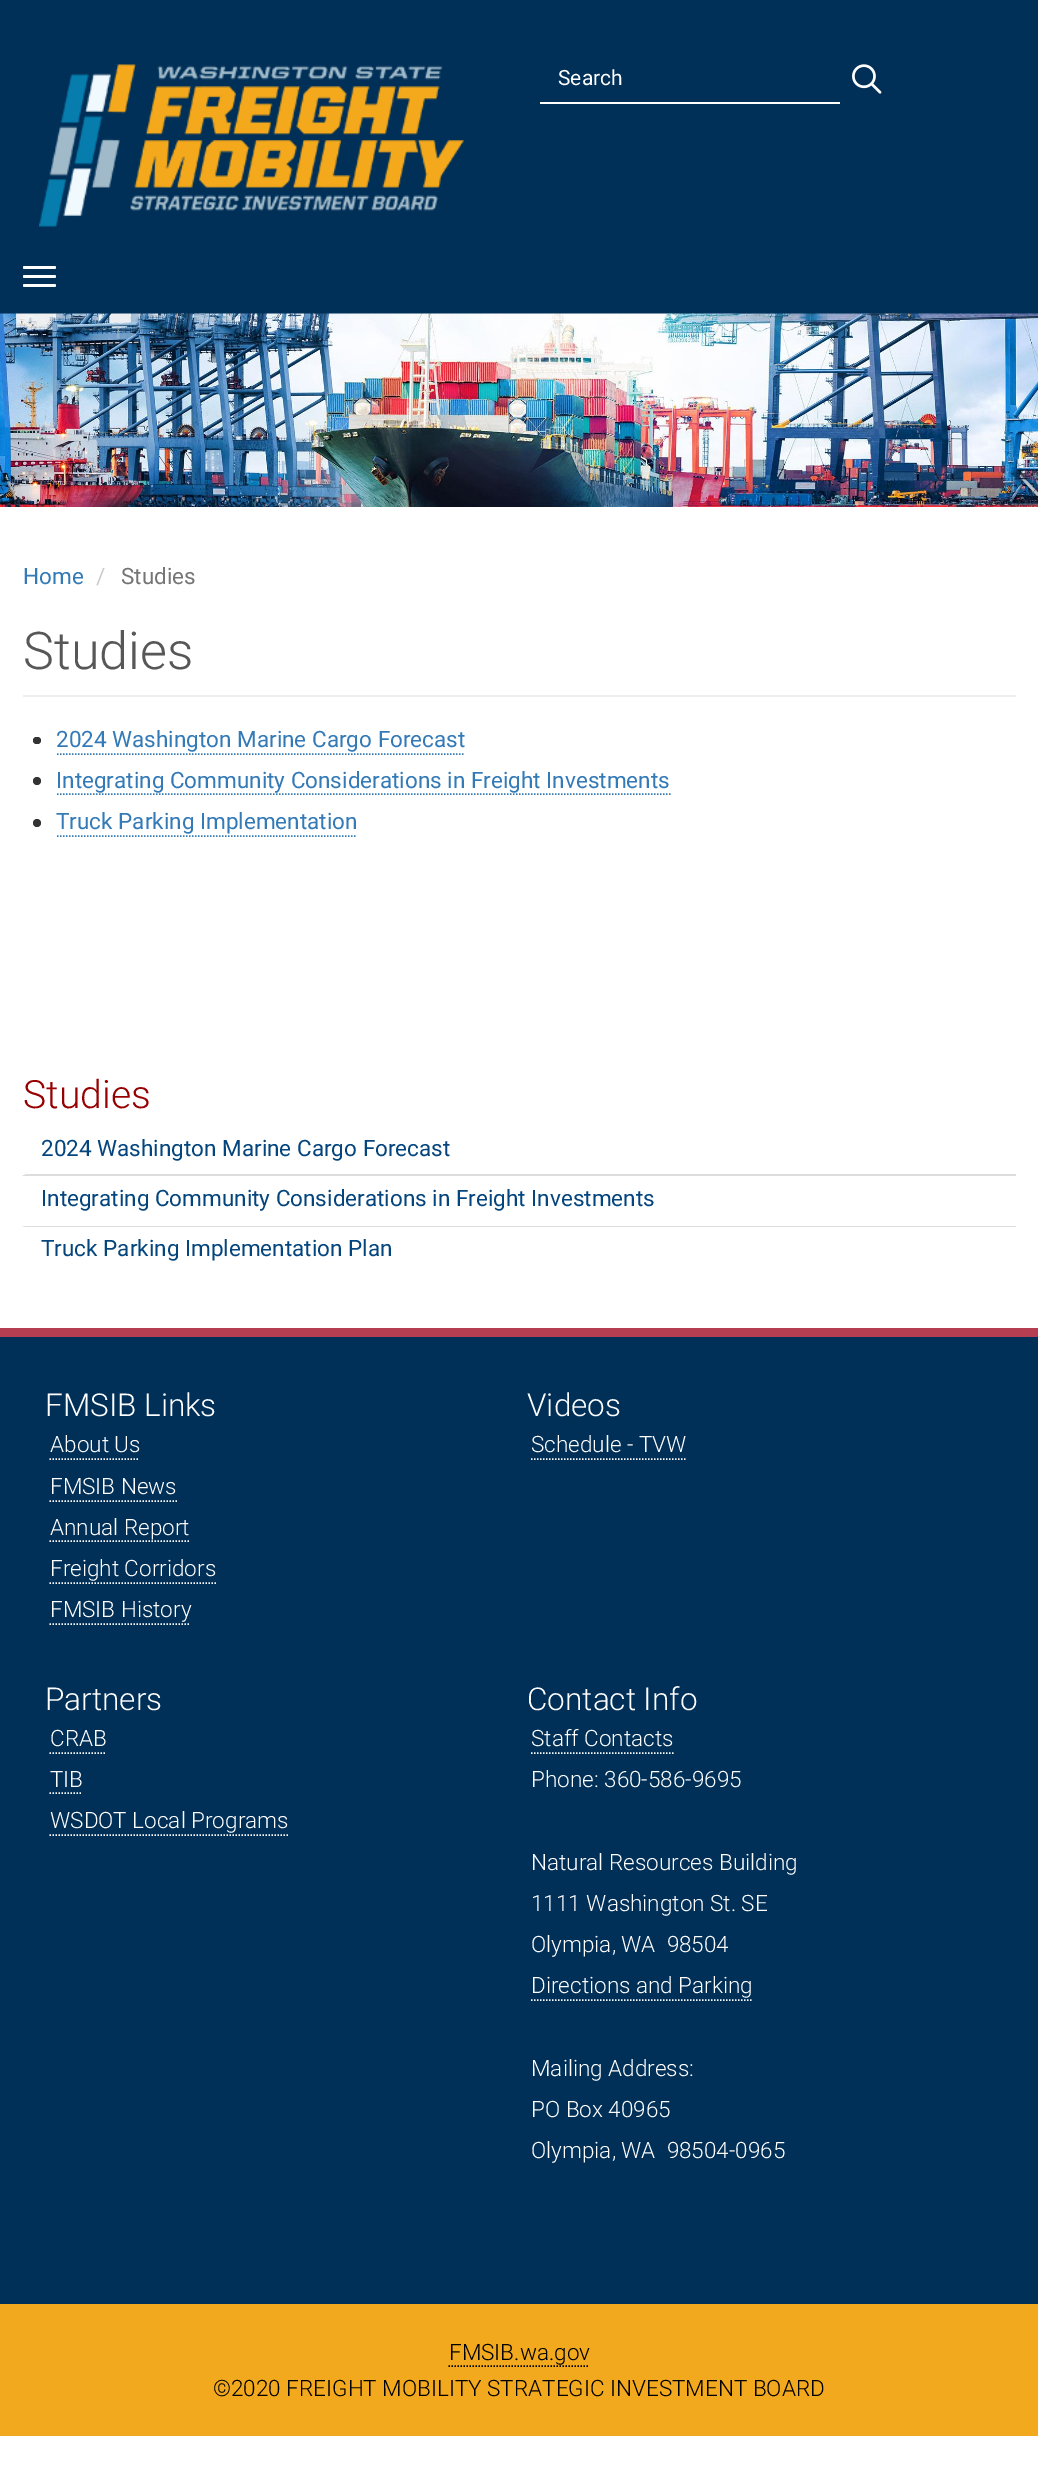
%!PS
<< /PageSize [1038 2479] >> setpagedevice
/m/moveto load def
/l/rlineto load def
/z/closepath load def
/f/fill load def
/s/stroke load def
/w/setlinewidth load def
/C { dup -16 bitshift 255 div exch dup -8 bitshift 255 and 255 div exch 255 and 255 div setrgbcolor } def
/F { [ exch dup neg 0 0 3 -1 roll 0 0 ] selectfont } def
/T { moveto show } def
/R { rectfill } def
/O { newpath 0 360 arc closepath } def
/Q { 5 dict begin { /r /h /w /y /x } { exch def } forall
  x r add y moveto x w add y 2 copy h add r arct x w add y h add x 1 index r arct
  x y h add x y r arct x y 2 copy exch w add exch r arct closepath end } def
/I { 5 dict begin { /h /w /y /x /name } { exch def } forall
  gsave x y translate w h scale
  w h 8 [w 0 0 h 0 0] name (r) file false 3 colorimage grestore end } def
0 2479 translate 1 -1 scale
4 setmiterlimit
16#FFFFFF C
0 0 1038 2479 R
16#002F57 C
0 0 1038 314 R
16#FFFFFF C
23 266 33 3 1.5 Q f
23 275 33 3 1.5 Q f
23 284 33 3 1.5 Q f
(1.rgb) 39 64 425 163 I
540 102 300 2 R
/Roboto-Regular 21 F
(Search) 558 85 T
(2.rgb) 852 64 30 30 I
(3.rgb) 0 313 1038 194 I
/Roboto-Regular 22.5 F
16#337AB7 C
(Home) 23 584 T
16#CCCCCC C
(/) 96 584 T
16#757575 C
(Studies) 121 584 T
16#EEEEEE C
23 695 993 2 R
/Roboto-Light 52 F
16#575757 C
(Studies) 23 669 T
16#333333 C
33 737 8 7 3.5 Q f
/Roboto-Regular 22.5 F
16#337AB7 C
(2024 Washington Marine Cargo Forecast) 56 747 T
1.5 w
[1.5 1.5] 0 setdash
57 754 m 408 0 l s
16#333333 C
37 781 4 O f
16#337AB7 C
(Integrating Community Considerations in Freight Investments) 56 788 T
57 794 m 613.5 0 l s
16#333333 C
37 823 4 O f
16#337AB7 C
(Truck Parking Implementation) 56 829 T
57 836 m 300 0 l s
/Roboto-Light 39 F
16#960000 C
(Studies) 23 1108 T
16#DDDDDD C
1016 1176 m -994 0 l 4 -2 l 990 0 l z f
/Roboto-Regular 22.5 F
16#04457D C
(2024 Washington Marine Cargo Forecast) 41 1156 T
16#DDDDDD C
1016 1227 m -994 0 l 4 -1 l 990 0 l z f
16#04457D C
(Integrating Community Considerations in Freight Investments) 41 1206 T
(Truck Parking Implementation Plan) 41 1256 T
16#002F57 C
0 1337 1038 967 R
16#B63E51 C
0 1328 1038 9 R
/Roboto-Light 31.5 F
16#FFFFFF C
(FMSIB Links) 45 1416 T
/Roboto-Light 22.5 F
(About Us) 50 1452 T
49.5 1459 m 90 0 l s
(FMSIB News) 50 1494 T
49.5 1501 m 127.5 0 l s
(Annual Report) 50 1535 T
49.5 1541 m 139.5 0 l s
(Freight Corridors) 50 1576 T
49.5 1583 m 166.5 0 l s
(FMSIB History) 50 1617 T
49.5 1624 m 141 0 l s
/Roboto-Light 31.5 F
(Videos) 527 1416 T
/Roboto-Light 22.5 F
(Schedule - TVW) 531 1452 T
531 1459 m 156 0 l s
/Roboto-Light 31.5 F
(Partners) 45 1710 T
/Roboto-Light 22.5 F
(CRAB) 50 1746 T
49.5 1753 m 57 0 l s
(TIB) 50 1787 T
49.5 1793 m 33 0 l s
(WSDOT Local Programs) 50 1828 T
49.5 1835 m 238.5 0 l s
/Roboto-Light 31.5 F
(Contact Info) 527 1710 T
/Roboto-Light 22.5 F
(Staff Contacts) 531 1746 T
531 1753 m 142.5 0 l s
(Phone: 360-586-9695) 531 1787 T
(Natural Resources Building) 531 1870 T
(1111 Washington St. SE) 531 1911 T
(Olympia, WA  98504) 531 1952 T
(Directions and Parking) 531 1993 T
531 2000 m 222 0 l s
(Mailing Address:) 531 2076 T
(PO Box 40965) 531 2117 T
(Olympia, WA  98504-0965) 531 2158 T
16#F2A91E C
0 2304 1038 132 R
16#000000 C
(FMSIB.wa.gov) 449 2360 T
448.5 2366 m 141 0 l s
(©2020 FREIGHT MOBILITY STRATEGIC INVESTMENT BOARD) 213 2396 T
showpage
